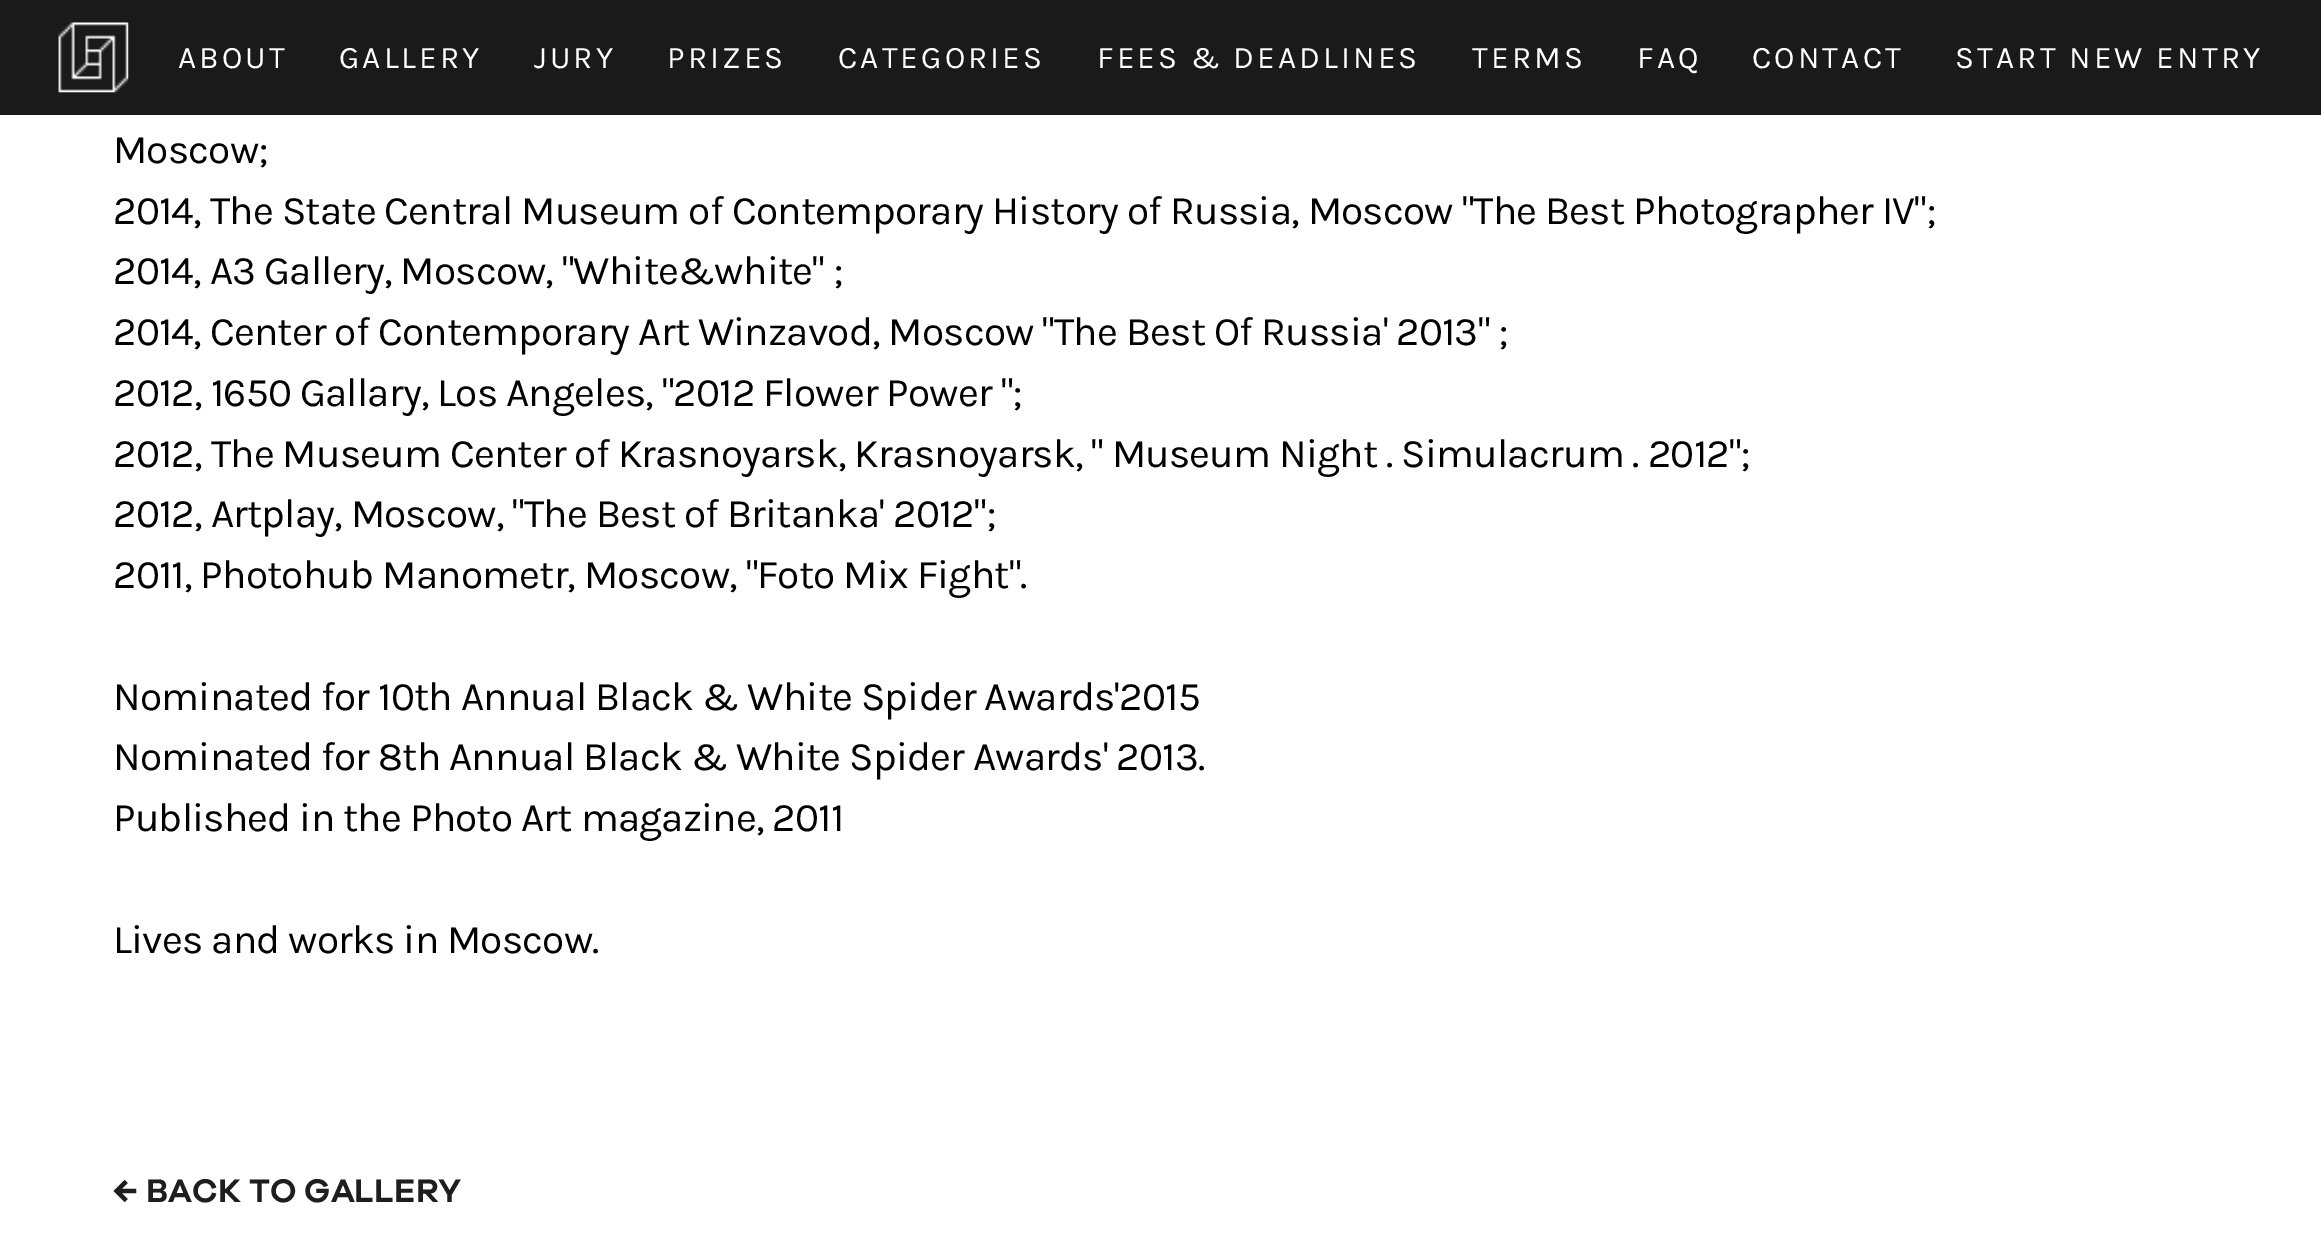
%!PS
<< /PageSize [2321 1257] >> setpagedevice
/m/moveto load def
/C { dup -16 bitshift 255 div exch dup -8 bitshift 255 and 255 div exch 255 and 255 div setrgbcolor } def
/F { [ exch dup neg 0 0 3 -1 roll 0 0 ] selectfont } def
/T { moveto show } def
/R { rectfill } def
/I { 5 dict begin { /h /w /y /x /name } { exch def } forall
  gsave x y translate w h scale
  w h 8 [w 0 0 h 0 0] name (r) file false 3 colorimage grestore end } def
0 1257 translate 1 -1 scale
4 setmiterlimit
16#FFFFFF C
0 0 2321 1257 R
16#1A1A1A C
0 0 2321 115 R
(1.rgb) 58 22 71 71 I
/Karla-Regular 31.5 F
16#FFFFFF C
178 68 m 3.1 0 (ABOUT) ashow
339 68 m 3.1 0 (GALLERY) ashow
534 68 m 3.1 0 (JURY) ashow
667 68 m 3.1 0 (PRIZES) ashow
838 68 m 3.1 0 (CATEGORIES) ashow
1097 68 m 3.1 0 (FEES & DEADLINES) ashow
1472 68 m 3.1 0 (TERMS) ashow
1637 68 m 3.1 0 (FAQ) ashow
1752 68 m 3.1 0 (CONTACT) ashow
1955 68 m 3.1 0 (START NEW ENTRY) ashow
/Karla-Regular 40.5 F
16#000000 C
113 163 m -.81 0 (Moscow;) ashow
113 224 m -.81 0 (2014, The State Central Museum of Contemporary History of Russia, Moscow "The Best Photographer IV";) ashow
113 284 m -.81 0 (2014, A3 Gallery, Moscow, "White&white" ;) ashow
113 345 m -.81 0 (2014, Center of Contemporary Art Winzavod, Moscow "The Best Of Russia' 2013" ;) ashow
113 406 m -.81 0 (2012, 1650 Gallary, Los Angeles, "2012 Flower Power ";) ashow
113 467 m -.81 0 (2012, The Museum Center of Krasnoyarsk, Krasnoyarsk, " Museum Night . Simulacrum . 2012";) ashow
113 527 m -.81 0 (2012, Artplay, Moscow, "The Best of Britanka' 2012";) ashow
113 588 m -.81 0 (2011, Photohub Manometr, Moscow, "Foto Mix Fight".) ashow
113 710 m -.81 0 (Nominated for 10th Annual Black & White Spider Awards'2015) ashow
113 770 m -.81 0 (Nominated for 8th Annual Black & White Spider Awards' 2013.) ashow
113 831 m -.81 0 (Published in the Photo Art magazine, 2011) ashow
113 953 m -.81 0 (Lives and works in Moscow.) ashow
/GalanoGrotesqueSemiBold-Regular 33.75 F
16#1E1E1E C
(← BACK TO GALLERY) 113 1202 T
showpage
